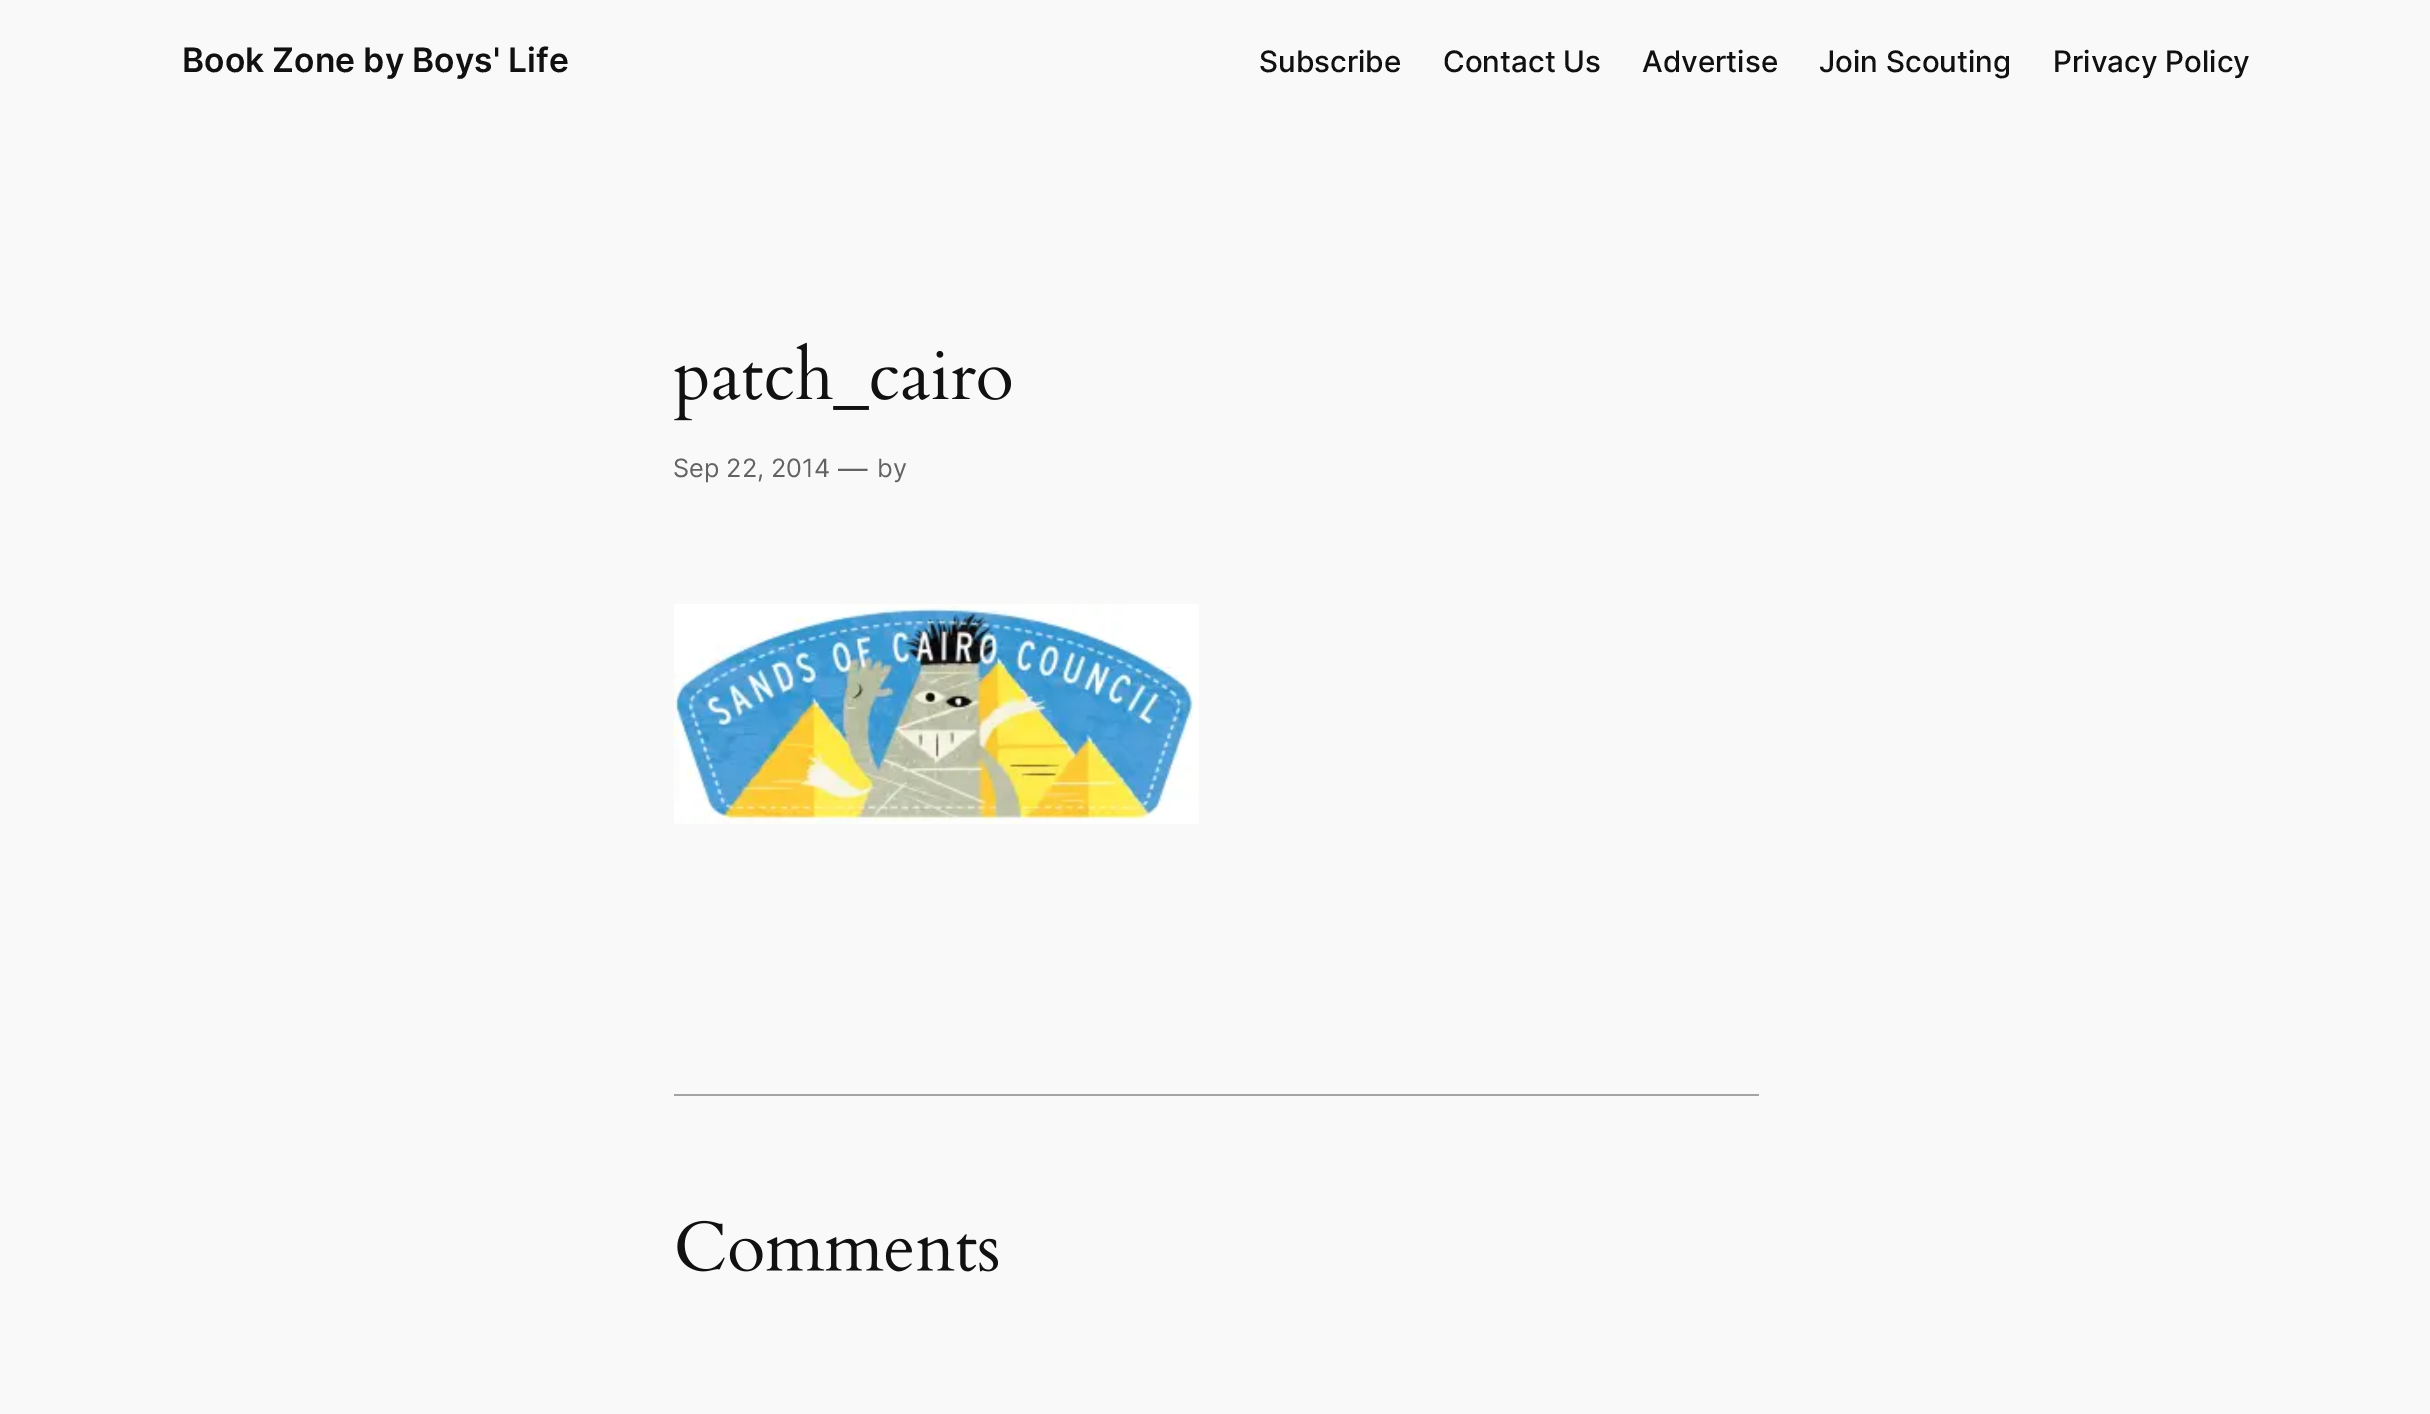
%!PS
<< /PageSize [2430 1414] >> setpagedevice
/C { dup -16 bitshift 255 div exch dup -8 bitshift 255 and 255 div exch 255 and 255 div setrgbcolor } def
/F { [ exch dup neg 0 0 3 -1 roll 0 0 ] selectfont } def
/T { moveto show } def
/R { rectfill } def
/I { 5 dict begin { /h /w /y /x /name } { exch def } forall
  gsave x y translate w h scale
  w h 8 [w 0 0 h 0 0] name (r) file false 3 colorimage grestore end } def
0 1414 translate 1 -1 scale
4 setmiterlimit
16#F9F9F9 C
0 0 2430 1414 R
/Inter-SemiBold 33.6 F
16#111111 C
(Book Zone by Boys' Life) 182 72 T
/Inter-Medium 29.5 F
(Subscribe) 1259 72 T
(Contact Us) 1443 72 T
(Advertise) 1642 72 T
(Join Scouting) 1819 72 T
(Privacy Policy) 2053 72 T
(1.rgb) 674 342 338 79 I
/Inter-Regular 25.25 F
16#636363 C
(Sep 22, 2014) 673 477 T
/Inter-Regular 29.5 F
(—) 838 479 T
/Inter-Regular 25.25 F
(by) 877 477 T
(2.rgb) 674 604 525 220 I
16#A4A4A4 C
674 1094 1085 2 R
(3.rgb) 677 1220 321 52 I
showpage
